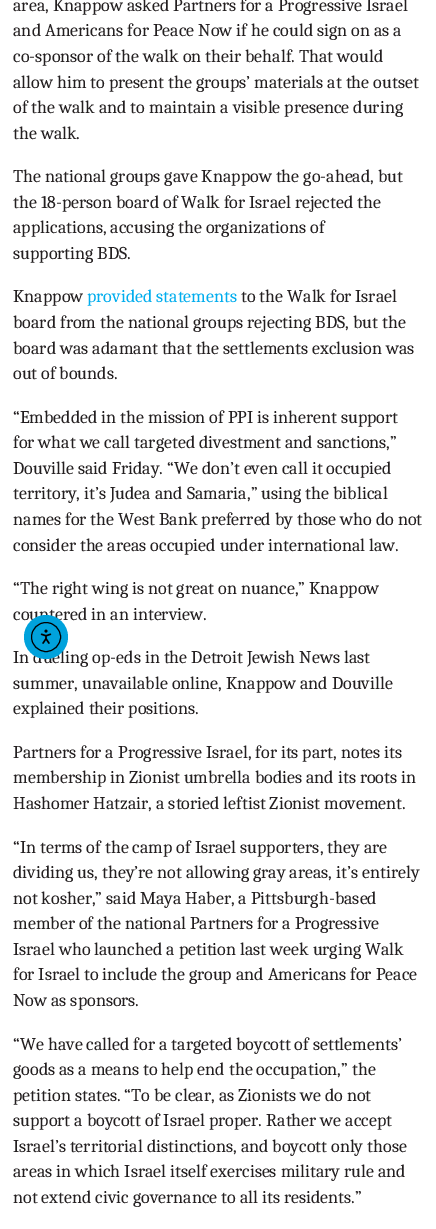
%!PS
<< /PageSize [436 1229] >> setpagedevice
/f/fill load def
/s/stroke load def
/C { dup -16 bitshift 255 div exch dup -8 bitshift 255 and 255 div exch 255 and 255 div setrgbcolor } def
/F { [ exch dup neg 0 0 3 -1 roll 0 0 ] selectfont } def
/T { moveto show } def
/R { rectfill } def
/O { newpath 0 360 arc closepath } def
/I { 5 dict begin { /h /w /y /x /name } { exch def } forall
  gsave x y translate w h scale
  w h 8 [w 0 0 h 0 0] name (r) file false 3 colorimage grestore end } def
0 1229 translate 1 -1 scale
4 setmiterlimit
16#FFFFFF C
0 0 436 1229 R
/Caladea-Regular 18 F
16#231F20 C
(area, Knappow asked Partners for a Progressive Israel) 13 11 T
(and Americans for Peace Now if he could sign on as a) 13 36 T
(co-sponsor of the walk on their behalf. That would) 13 62 T
(allow him to present the groups’ materials at the outset) 13 88 T
(of the walk and to maintain a visible presence during) 13 113 T
(the walk.) 13 139 T
(The national groups gave Knappow the go-ahead, but) 13 182 T
(the 18-person board of Walk for Israel rejected the) 13 208 T
(applications, accusing the organizations of) 13 233 T
(supporting BDS.) 13 259 T
(Knappow) 13 302 T
16#00ADEE C
(provided statements) 87 302 T
16#231F20 C
(to the Walk for Israel) 241 302 T
(board from the national groups rejecting BDS, but the) 13 328 T
(board was adamant that the settlements exclusion was) 13 354 T
(out of bounds.) 13 379 T
(“Embedded in the mission of PPI is inherent support) 13 423 T
(for what we call targeted divestment and sanctions,”) 13 448 T
(Douville said Friday. “We don’t even call it occupied) 13 474 T
(territory, it’s Judea and Samaria,” using the biblical) 13 499 T
(names for the West Bank preferred by those who do not) 13 525 T
(consider the areas occupied under international law.) 13 551 T
(“The right wing is not great on nuance,” Knappow) 13 594 T
(countered in an interview.) 13 620 T
(In dueling op-eds in the Detroit Jewish News last) 13 663 T
(summer, unavailable online, Knappow and Douville) 13 689 T
(explained their positions.) 13 714 T
(Partners for a Progressive Israel, for its part, notes its) 13 758 T
(membership in Zionist umbrella bodies and its roots in) 13 783 T
(Hashomer Hatzair, a storied leftist Zionist movement.) 13 809 T
(“In terms of the camp of Israel supporters, they are) 13 853 T
(dividing us, they’re not allowing gray areas, it’s entirely) 13 878 T
(not kosher,” said Maya Haber, a Pittsburgh-based) 13 904 T
(member of the national Partners for a Progressive) 13 929 T
(Israel who launched a petition last week urging Walk) 13 955 T
(for Israel to include the group and Americans for Peace) 13 980 T
(Now as sponsors.) 13 1006 T
(“We have called for a targeted boycott of settlements’) 13 1050 T
(goods as a means to help end the occupation,” the) 13 1075 T
(petition states. “To be clear, as Zionists we do not) 13 1101 T
(support a boycott of Israel proper. Rather we accept) 13 1126 T
(Israel’s territorial distinctions, and boycott only those) 13 1152 T
(areas in which Israel itself exercises military rule and) 13 1177 T
(not extend civic governance to all its residents.”) 13 1203 T
16#00A2DC C
46 637 22 O f
16#000000 C
46 637 14.5 O s
(1.rgb) 40 629 12 15 I
showpage
